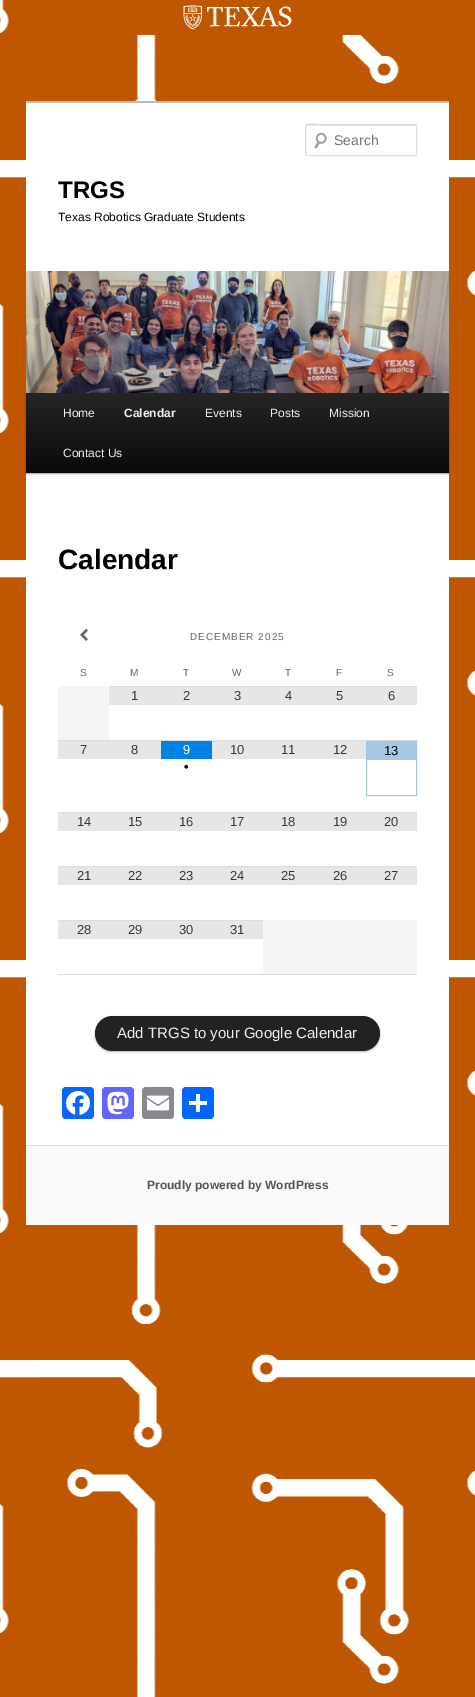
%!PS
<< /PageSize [475 1697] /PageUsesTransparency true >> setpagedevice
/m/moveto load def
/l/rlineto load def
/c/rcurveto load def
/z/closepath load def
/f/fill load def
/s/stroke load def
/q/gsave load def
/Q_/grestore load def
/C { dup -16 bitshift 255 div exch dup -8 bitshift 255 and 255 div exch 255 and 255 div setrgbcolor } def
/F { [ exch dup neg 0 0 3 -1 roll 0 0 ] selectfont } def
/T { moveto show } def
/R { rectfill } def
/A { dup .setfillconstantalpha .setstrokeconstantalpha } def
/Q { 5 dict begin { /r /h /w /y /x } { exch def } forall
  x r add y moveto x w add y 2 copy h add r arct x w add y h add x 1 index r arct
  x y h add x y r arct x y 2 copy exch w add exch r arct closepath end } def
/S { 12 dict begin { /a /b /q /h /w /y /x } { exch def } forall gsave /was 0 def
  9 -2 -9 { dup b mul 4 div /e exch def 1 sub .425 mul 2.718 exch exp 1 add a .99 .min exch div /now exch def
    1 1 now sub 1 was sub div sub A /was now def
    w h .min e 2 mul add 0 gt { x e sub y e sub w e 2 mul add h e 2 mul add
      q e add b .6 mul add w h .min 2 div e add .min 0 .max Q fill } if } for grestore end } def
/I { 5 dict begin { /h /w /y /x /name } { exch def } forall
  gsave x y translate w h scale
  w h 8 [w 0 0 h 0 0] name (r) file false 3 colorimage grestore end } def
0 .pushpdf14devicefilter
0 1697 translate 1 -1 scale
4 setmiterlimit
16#FFFFFF C
0 0 475 1697 R
(1.rgb) 0 0 475 1697 I
16#BF5700 C
136 0 273 35 R
(2.rgb) 183 5 109 25 I
16#FFFFFF C
26 103 423 1042 R
16#BBBBBB C
26 101 423 2 R
(3.rgb) 314 132 13 17 I
16#E6E6E6 C
307 126 m 109 0 l 0 1 l -1 -2 l -90 0 l -4 0 -19 -5 -19 2 c 0 -1 0 -1 1 -1 c z f
16#DDDDDD C
305.5 124.5 111 31 1.5 Q s
/LiberationSans-Regular 14 F
16#757575 C
(Search) 334 145 T
/LiberationSans-Bold 24 F
16#000000 C
(TRGS) 58 198 T
/LiberationSans-Regular 12 F
(Texas Robotics Graduate Students) 58 221 T
26 394 423 80 0 1 .4 S
(4.rgb) 26 271 423 122 I
q 26 393 m 423 0 l 0 80 l -423 0 l z clip newpath
<< /ShadingType 2 /ColorSpace /DeviceRGB /Coords [238 393 238 473] /Extend [true true] /Function << /FunctionType 2 /Domain [0 1] /C0 [.145 .145 .145] /C1 [.039 .039 .039] /N 1 >> >> shfill Q_
16#EEEEEE C
(Home) 63 417 T
/LiberationSans-Bold 12 F
(Calendar) 124 417 T
/LiberationSans-Regular 12 F
(Events) 205 417 T
(Posts) 270 417 T
(Mission) 329 417 T
(Contact Us) 63 457 T
/LiberationSans-Bold 28 F
16#000000 C
(Calendar) 58 569 T
16#DDDDDD C
58 974 359 1 R
(5.rgb) 80 628 8 13 I
/LiberationSans-Regular 10 F
16#666666 C
190 640 m 1 0 (DECEMBER 2025) ashow
80 676 m 1 0 (S) ashow
130 676 m 1 0 (M) ashow
183 676 m 1 0 (T) ashow
232 676 m 1 0 (W) ashow
285 676 m 1 0 (T) ashow
336 676 m 1 0 (F) ashow
387 676 m 1 0 (S) ashow
16#F5F5F5 C
58 686 51 54 R
16#DDDDDD C
109 686 308 1 R
16#E6E6E6 C
109 687 308 18 R
/LiberationSans-Regular 13 F
16#373737 C
(1) 131 700 T
(2) 183 700 T
(3) 234 700 T
(4) 285 700 T
(5) 336 700 T
(6) 388 700 T
16#DDDDDD C
58 740 359 1 R
16#E6E6E6 C
58 741 103 18 R
16#373737 C
(7) 80 754 T
(8) 131 754 T
16#0082E5 C
161 741 51 18 R
16#FFFFFF C
(9) 183 754 T
/LiberationSans-Bold 13 F
16#000000 C
(•) 184 771 T
16#E6E6E6 C
212 741 154 18 R
/LiberationSans-Regular 13 F
16#373737 C
(10) 230 754 T
(11) 281 754 T
(12) 333 754 T
16#A5C9E5 C
366.5 741.5 50 54 rectstroke
367 742 49 18 R
16#000000 C
(13) 384 755 T
16#DDDDDD C
58 812 359 1 R
16#E6E6E6 C
58 813 359 18 R
16#373737 C
(14) 77 826 T
(15) 128 826 T
(16) 179 826 T
(17) 230 826 T
(18) 281 826 T
(19) 333 826 T
(20) 384 826 T
16#DDDDDD C
58 866 359 1 R
16#E6E6E6 C
58 867 359 18 R
16#373737 C
(21) 77 880 T
(22) 128 880 T
(23) 179 880 T
(24) 230 880 T
(25) 281 880 T
(26) 333 880 T
(27) 384 880 T
16#DDDDDD C
58 920 205 1 R
16#E6E6E6 C
58 921 205 18 R
16#373737 C
(28) 77 934 T
(29) 128 934 T
(30) 179 934 T
(31) 230 934 T
16#F5F5F5 C
263 920 154 54 R
16#000000 C
95 1017 285 35 17.5 1 .3 S
16#222222 C
95 1016 285 35 17.5 Q f
/LiberationSans-Regular 15 F
16#EEEEEE C
(Add TRGS to your Google Calendar) 117 1038 T
16#0866FF C
62 1087 32 32 4 Q f
(6.rgb) 66 1091 24 24 I
16#6364FF C
102 1087 32 32 4 Q f
(7.rgb) 107 1091 22 24 I
16#888990 C
142 1087 32 32 4 Q f
(8.rgb) 147 1095 22 16 I
16#0166FF C
182 1087 32 32 4 Q f
16#FFFFFF C
196 1094 4 18 R
189 1101 18 4 R
16#F9F9F9 C
26 1146 423 79 R
16#DDDDDD C
26 1145 423 1 R
/LiberationSans-Bold 12 F
16#555555 C
(Proudly powered by WordPress) 147 1189 T
.poppdf14devicefilter showpage
